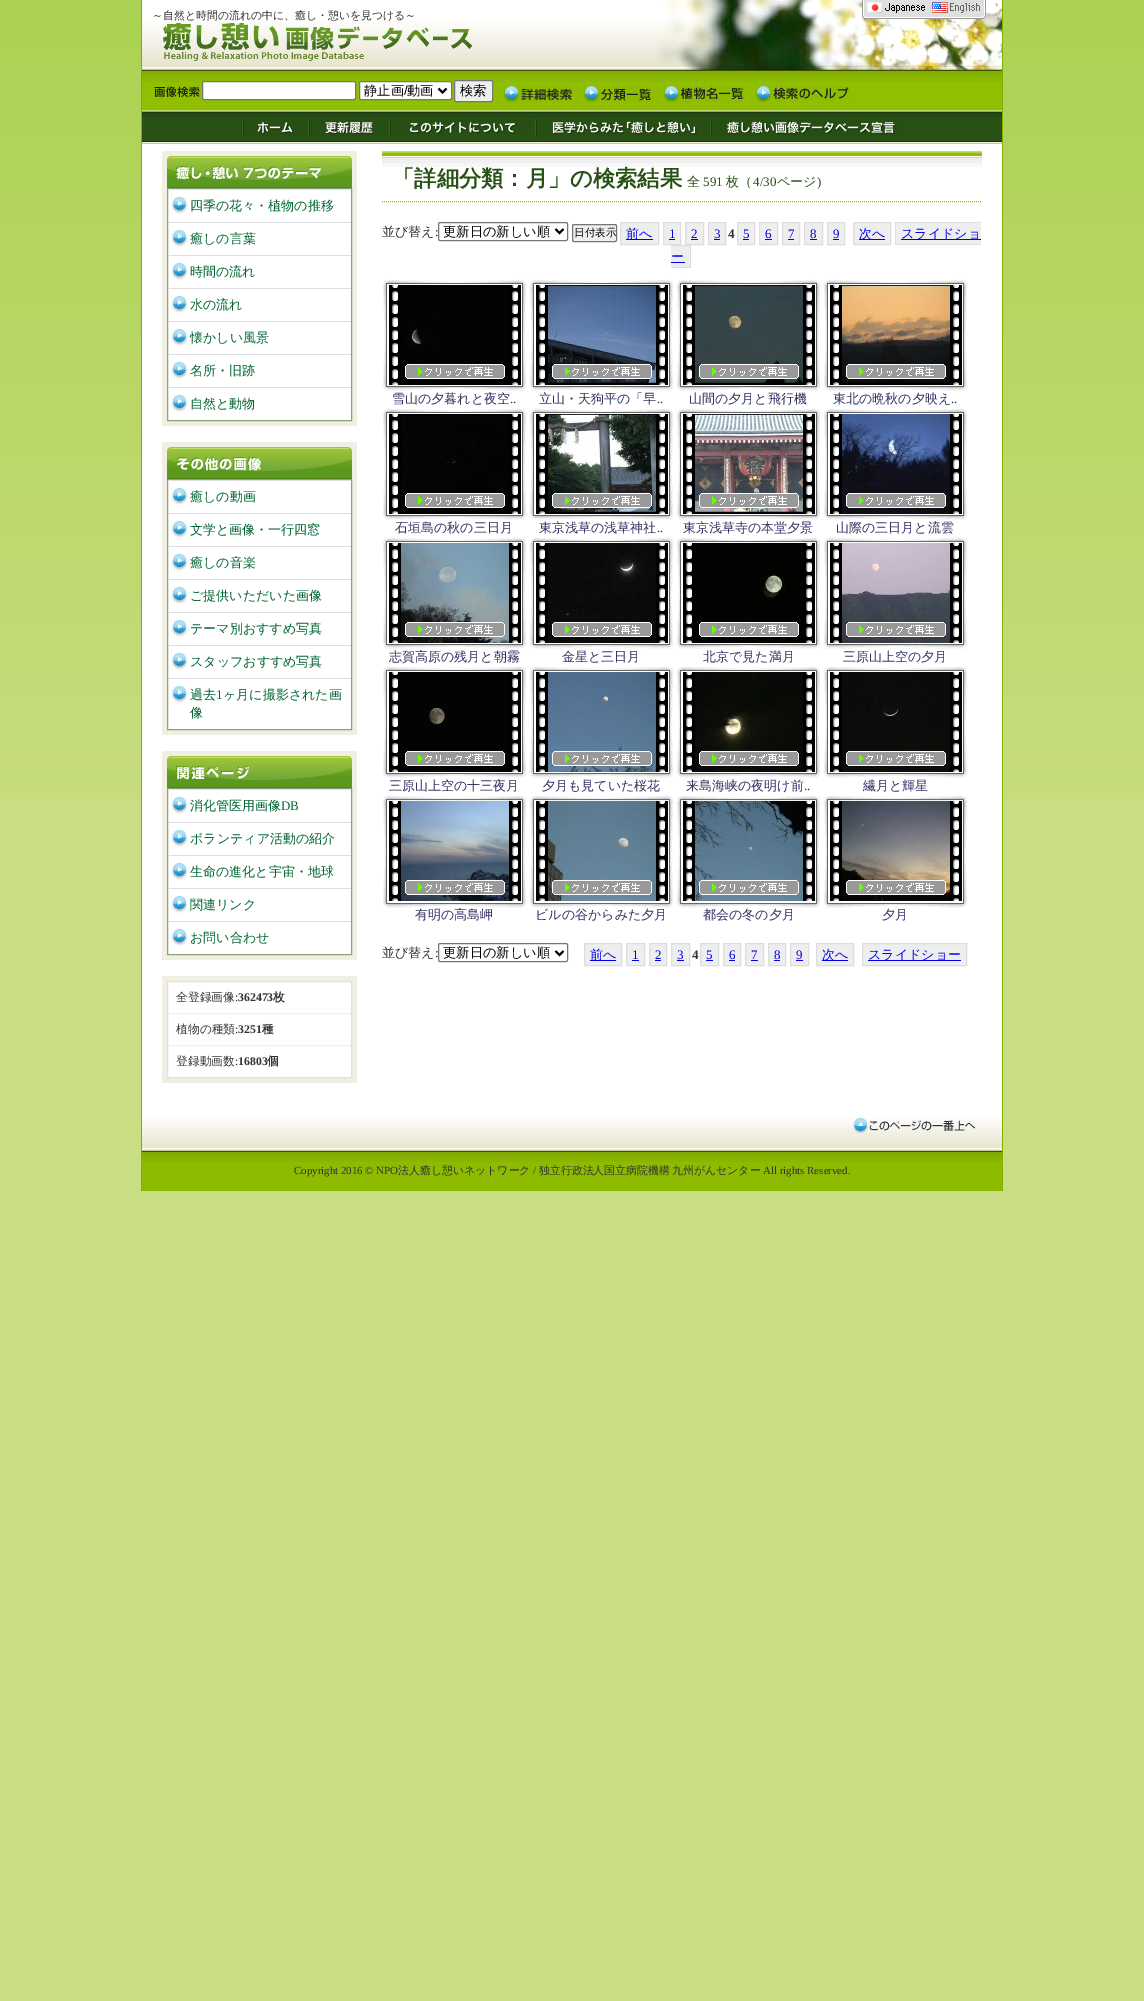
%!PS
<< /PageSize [1144 2001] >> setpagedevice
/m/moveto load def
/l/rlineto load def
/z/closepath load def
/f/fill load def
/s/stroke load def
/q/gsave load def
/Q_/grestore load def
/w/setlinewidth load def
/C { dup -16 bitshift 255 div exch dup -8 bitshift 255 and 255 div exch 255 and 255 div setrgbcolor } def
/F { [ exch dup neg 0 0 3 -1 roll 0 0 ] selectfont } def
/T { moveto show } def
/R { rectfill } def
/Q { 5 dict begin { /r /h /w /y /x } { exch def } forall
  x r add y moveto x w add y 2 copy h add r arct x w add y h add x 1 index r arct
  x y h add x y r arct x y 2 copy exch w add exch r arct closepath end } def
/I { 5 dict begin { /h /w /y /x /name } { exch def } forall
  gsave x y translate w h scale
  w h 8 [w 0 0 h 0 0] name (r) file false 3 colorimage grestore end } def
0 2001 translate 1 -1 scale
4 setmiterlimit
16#C9DD82 C
0 0 1144 2001 R
(1.rgb) 0 0 1144 800 I
16#8FBF00 C
142 82 860 30 R
16#82AE00 C
1002 0 1 1191 R
141 0 1 1191 R
(2.rgb) 142 0 860 70 I
/WenQuanYiZenHei-Medium 10.9 F
16#333333 C
(～自然と時間の流れの中に、癒し・憩いを見つける～) 152 19 T
(3.rgb) 862 0 124 19 I
(4.rgb) 163 23 310 38 I
(5.rgb) 142 70 860 12 I
(6.rgb) 154 86 46 11 I
16#FFFFFF C
202.5 81.5 153 18 1.5 Q q f Q_
16#767676 C
s
16#FFFFFF C
359.5 81.5 92 18 1.5 Q q f Q_
16#767676 C
s
16#000000 C
2 w
438.5 88.5 m 4 4 l 4 -4 l s
/WenQuanYiZenHei-Medium 13.25 F
(静止画) 364 95 T
/LiberationSans-Regular 13.25 F
(/) 404 95 T
/WenQuanYiZenHei-Medium 13.25 F
(動画) 407 95 T
16#EFEFEF C
454.5 80.5 38 21 1.5 Q q f Q_
16#767676 C
1 w
s
16#000000 C
(検索) 460 95 T
(7.rgb) 503 86 69 16 I
(8.rgb) 583 86 68 16 I
(9.rgb) 663 86 80 16 I
(10.rgb) 755 86 94 16 I
16#C0DA74 C
142 110 860 1 R
(11.rgb) 142 112 860 39 I
(12.rgb) 242 117 66 20 I
(13.rgb) 308 117 83 20 I
(14.rgb) 391 117 141 17 I
(15.rgb) 535 117 175 20 I
(16.rgb) 710 117 194 20 I
16#FFFFFF C
142 151 860 967 R
(17.rgb) 142 1118 860 33 I
16#F1EFE2 C
162 151 195 275 R
(18.rgb) 167 156 185 32 I
16#FFFFFF C
168 190 183 230 R
16#86A47B C
167.5 188.5 184 232 rectstroke
(19.rgb) 171 197 17 17 I
16#E0DFE3 C
168 189 183 1 R
/WenQuanYiZenHei-Medium 13 F
16#006633 C
(四季の花々・植物の推移) 190 210 T
(19.rgb) 171 230 17 17 I
16#E0DFE3 C
168 222 183 1 R
16#006633 C
(癒しの言葉) 190 243 T
(19.rgb) 171 263 17 17 I
16#E0DFE3 C
168 255 183 1 R
16#006633 C
(時間の流れ) 190 276 T
(19.rgb) 171 296 17 17 I
16#E0DFE3 C
168 288 183 1 R
16#006633 C
(水の流れ) 190 309 T
(19.rgb) 171 329 17 17 I
16#E0DFE3 C
168 321 183 1 R
16#006633 C
(懐かしい風景) 190 342 T
(19.rgb) 171 362 17 17 I
16#E0DFE3 C
168 354 183 1 R
16#006633 C
(名所・旧跡) 190 375 T
(19.rgb) 171 395 17 17 I
16#E0DFE3 C
168 387 183 1 R
16#006633 C
(自然と動物) 190 408 T
16#F1EFE2 C
162 442 195 293 R
(20.rgb) 167 447 185 32 I
16#FFFFFF C
168 481 183 248 R
16#86A47B C
167.5 479.5 184 250 rectstroke
(19.rgb) 171 488 17 17 I
16#E0DFE3 C
168 480 183 1 R
16#006633 C
(癒しの動画) 190 501 T
(19.rgb) 171 521 17 17 I
16#E0DFE3 C
168 513 183 1 R
16#006633 C
(文学と画像・一行四窓) 190 534 T
(19.rgb) 171 554 17 17 I
16#E0DFE3 C
168 546 183 1 R
16#006633 C
(癒しの音楽) 190 567 T
(19.rgb) 171 587 17 17 I
16#E0DFE3 C
168 579 183 1 R
16#006633 C
(ご提供いただいた画像) 190 600 T
(19.rgb) 171 620 17 17 I
16#E0DFE3 C
168 612 183 1 R
16#006633 C
(テーマ別おすすめ写真) 190 633 T
(19.rgb) 171 653 17 17 I
16#E0DFE3 C
168 645 183 1 R
16#006633 C
(スタッフおすすめ写真) 190 666 T
(19.rgb) 171 686 17 17 I
16#E0DFE3 C
168 678 183 1 R
16#006633 C
(過去) 190 699 T
/LiberationSerif-Regular 13 F
(1) 216 699 T
/WenQuanYiZenHei-Medium 13 F
(ヶ月に撮影された画) 223 699 T
(像) 190 717 T
16#F1EFE2 C
162 751 195 209 R
(21.rgb) 167 756 185 32 I
16#FFFFFF C
168 790 183 164 R
16#86A47B C
167.5 788.5 184 166 rectstroke
(19.rgb) 171 797 17 17 I
16#E0DFE3 C
168 789 183 1 R
16#006633 C
(消化管医用画像) 190 810 T
/LiberationSerif-Regular 13 F
(DB) 281 810 T
(19.rgb) 171 830 17 17 I
16#E0DFE3 C
168 822 183 1 R
/WenQuanYiZenHei-Medium 13 F
16#006633 C
(ボランティア活動の紹介) 190 843 T
(19.rgb) 171 863 17 17 I
16#E0DFE3 C
168 855 183 1 R
16#006633 C
(生命の進化と宇宙・地球) 190 876 T
(19.rgb) 171 896 17 17 I
16#E0DFE3 C
168 888 183 1 R
16#006633 C
(関連リンク) 190 909 T
(19.rgb) 171 929 17 17 I
16#E0DFE3 C
168 921 183 1 R
16#006633 C
(お問い合わせ) 190 942 T
16#F1EFE2 C
162 976 195 107 R
16#FFFFFF C
167.5 981.5 m 184 0 l 0 96 l -184 0 l z q f Q_
16#E0DFE3 C
s
[1 1] 0 setdash
168 1013.5 m 183 0 l s
/WenQuanYiZenHei-Medium 11.75 F
16#333333 C
(全登録画像) 176 1001 T
/LiberationSerif-Regular 11.75 F
(:) 235 1001 T
/LiberationSerif-Bold 11.75 F
(362473) 238 1001 T
/WenQuanYiZenHei-Bold 11.75 F
(枚) 273 1001 T
16#E0DFE3 C
168 1045.5 m 183 0 l s
/WenQuanYiZenHei-Medium 11.75 F
16#333333 C
(植物の種類) 176 1033 T
/LiberationSerif-Regular 11.75 F
(:) 235 1033 T
/LiberationSerif-Bold 11.75 F
(3251) 238 1033 T
/WenQuanYiZenHei-Bold 11.75 F
(種) 262 1033 T
/WenQuanYiZenHei-Medium 11.75 F
(登録動画数) 176 1065 T
/LiberationSerif-Regular 11.75 F
(:) 235 1065 T
/LiberationSerif-Bold 11.75 F
(16803) 238 1065 T
/WenQuanYiZenHei-Bold 11.75 F
(個) 267 1065 T
(22.rgb) 382 151 600 16 I
16#8FBF00 C
382 201.5 m 600 0 l s
/WenQuanYiZenHei-Bold 22.25 F
16#285115 C
(「詳細分類：月」の検索結果) 392 186 T
/WenQuanYiZenHei-Medium 13 F
(全) 687 186 T
/LiberationSerif-Regular 13 F
(591) 703 186 T
/WenQuanYiZenHei-Medium 13 F
(枚（) 726 186 T
/LiberationSerif-Regular 13 F
(4/30) 753 186 T
/WenQuanYiZenHei-Medium 13 F
(ページ) 777 186 T
/LiberationSerif-Regular 13 F
(\)) 817 186 T
/WenQuanYiZenHei-Medium 13 F
16#333333 C
(並び替え) 382 236 T
/LiberationSerif-Regular 13 F
(:) 435 236 T
16#767676 C
[] 0 setdash
438.5 222.5 129 18 1.5 Q s
16#000000 C
2 w
555.5 229 m 4 4 l 4 -4 l s
/WenQuanYiZenHei-Medium 13.25 F
(更新日の新しい順) 443 236 T
16#EFEFEF C
572.5 224.5 44 17 1.5 Q q f Q_
16#767676 C
1 w
s
/WenQuanYiZenHei-Medium 10.5 F
16#000000 C
(日付表示) 574 236 T
16#EEEEEE C
620.5 222.5 m 38 0 l 0 22 l -38 0 l z q f Q_
16#DDDDDD C
s
16#0000EE C
626 239 27 1 R
/WenQuanYiZenHei-Medium 13 F
(前へ) 626 238 T
16#EEEEEE C
663.5 222.5 m 17 0 l 0 22 l -17 0 l z q f Q_
16#DDDDDD C
s
/LiberationSerif-Regular 13 F
16#0000EE C
(1) 669 238 T
669 239 6 1 R
16#EEEEEE C
685.5 222.5 m 18 0 l 0 22 l -18 0 l z q f Q_
16#DDDDDD C
s
16#0000EE C
(2) 691 238 T
691 239 7 1 R
16#EEEEEE C
708.5 222.5 m 17 0 l 0 22 l -17 0 l z q f Q_
16#DDDDDD C
s
16#0000EE C
(3) 714 238 T
714 239 6 1 R
/LiberationSerif-Bold 13 F
16#333333 C
(4) 728 238 T
16#EEEEEE C
737.5 222.5 m 17 0 l 0 22 l -17 0 l z q f Q_
16#DDDDDD C
s
/LiberationSerif-Regular 13 F
16#0000EE C
(5) 743 238 T
743 239 6 1 R
16#EEEEEE C
759.5 222.5 m 18 0 l 0 22 l -18 0 l z q f Q_
16#DDDDDD C
s
16#0000EE C
(6) 765 238 T
765 239 7 1 R
16#EEEEEE C
782.5 222.5 m 17 0 l 0 22 l -17 0 l z q f Q_
16#DDDDDD C
s
16#0000EE C
(7) 788 238 T
788 239 6 1 R
16#EEEEEE C
804.5 222.5 m 18 0 l 0 22 l -18 0 l z q f Q_
16#DDDDDD C
s
16#0000EE C
(8) 810 238 T
810 239 7 1 R
16#EEEEEE C
827.5 222.5 m 17 0 l 0 22 l -17 0 l z q f Q_
16#DDDDDD C
s
16#0000EE C
(9) 833 238 T
833 239 6 1 R
16#EEEEEE C
853.5 222.5 m 37 0 l 0 22 l -37 0 l z q f Q_
16#DDDDDD C
s
16#0000EE C
859 239 26 1 R
/WenQuanYiZenHei-Medium 13 F
(次へ) 859 238 T
16#EEEEEE C
896 223 85 21 R
16#0000EE C
901 239 80 1 R
(スライドショ) 901 238 T
16#DDDDDD C
895 222 86 1 R
895 244 86 1 R
895 222 1 23 R
16#EEEEEE C
671 246 19 21 R
16#0000EE C
(ー) 671 261 T
16#DDDDDD C
671 245 20 1 R
690 245 1 23 R
671 267 20 1 R
16#0000EE C
671 262 14 1 R
(23.rgb) 382 279 145 112 I
(24.rgb) 389 285 132 100 I
16#333366 C
(雪山の夕暮れと夜空) 392 403 T
/LiberationSerif-Regular 13 F
(..) 510 403 T
(23.rgb) 529 279 145 112 I
(25.rgb) 536 285 132 100 I
/WenQuanYiZenHei-Medium 13 F
(立山・天狗平の「早) 539 403 T
/LiberationSerif-Regular 13 F
(..) 657 403 T
(23.rgb) 676 279 145 112 I
(26.rgb) 683 285 132 100 I
/WenQuanYiZenHei-Medium 13 F
(山間の夕月と飛行機) 689 403 T
(23.rgb) 823 279 145 112 I
(27.rgb) 830 285 132 100 I
(東北の晩秋の夕映え) 833 403 T
/LiberationSerif-Regular 13 F
(..) 951 403 T
(23.rgb) 382 408 145 112 I
(28.rgb) 389 414 132 100 I
/WenQuanYiZenHei-Medium 13 F
(石垣島の秋の三日月) 395 532 T
(23.rgb) 529 408 145 112 I
(29.rgb) 536 414 132 100 I
(東京浅草の浅草神社) 539 532 T
/LiberationSerif-Regular 13 F
(..) 657 532 T
(23.rgb) 676 408 145 112 I
(30.rgb) 683 414 132 100 I
/WenQuanYiZenHei-Medium 13 F
(東京浅草寺の本堂夕景) 683 532 T
(23.rgb) 823 408 145 112 I
(31.rgb) 830 414 132 100 I
(山際の三日月と流雲) 836 532 T
(23.rgb) 382 537 145 112 I
(32.rgb) 389 543 132 100 I
(志賀高原の残月と朝霧) 389 661 T
(23.rgb) 529 537 145 112 I
(33.rgb) 536 543 132 100 I
(金星と三日月) 562 661 T
(23.rgb) 676 537 145 112 I
(34.rgb) 683 543 132 100 I
(北京で見た満月) 703 661 T
(23.rgb) 823 537 145 112 I
(35.rgb) 830 543 132 100 I
(三原山上空の夕月) 843 661 T
(23.rgb) 382 666 145 112 I
(36.rgb) 389 672 132 100 I
(三原山上空の十三夜月) 389 790 T
(23.rgb) 529 666 145 112 I
(37.rgb) 536 672 132 100 I
(夕月も見ていた桜花) 542 790 T
(23.rgb) 676 666 145 112 I
(38.rgb) 683 672 132 100 I
(来島海峡の夜明け前) 686 790 T
/LiberationSerif-Regular 13 F
(..) 804 790 T
(23.rgb) 823 666 145 112 I
(39.rgb) 830 672 132 100 I
/WenQuanYiZenHei-Medium 13 F
(繊月と輝星) 863 790 T
(40.rgb) 382 795 145 113 I
(41.rgb) 389 801 132 100 I
(有明の高島岬) 415 919 T
(40.rgb) 529 795 145 113 I
(42.rgb) 536 801 132 100 I
(ビルの谷からみた夕月) 535 919 T
(40.rgb) 676 795 145 113 I
(43.rgb) 683 801 132 100 I
(都会の冬の夕月) 703 919 T
(40.rgb) 823 795 145 113 I
(44.rgb) 830 801 132 100 I
(夕月) 882 919 T
16#333333 C
(並び替え) 382 957 T
/LiberationSerif-Regular 13 F
(:) 435 957 T
16#767676 C
438.5 943.5 129 18 1.5 Q s
16#000000 C
2 w
555.5 951 m 4 4 l 4 -4 l s
/WenQuanYiZenHei-Medium 13.25 F
(更新日の新しい順) 443 957 T
16#EEEEEE C
584.5 943.5 m 37 0 l 0 22 l -37 0 l z q f Q_
16#DDDDDD C
1 w
s
16#0000EE C
590 960 26 1 R
/WenQuanYiZenHei-Medium 13 F
(前へ) 590 959 T
16#EEEEEE C
626.5 943.5 m 18 0 l 0 22 l -18 0 l z q f Q_
16#DDDDDD C
s
/LiberationSerif-Regular 13 F
16#0000EE C
(1) 632 959 T
632 960 7 1 R
16#EEEEEE C
649.5 943.5 m 17 0 l 0 22 l -17 0 l z q f Q_
16#DDDDDD C
s
16#0000EE C
(2) 655 959 T
655 960 6 1 R
16#EEEEEE C
671.5 943.5 m 18 0 l 0 22 l -18 0 l z q f Q_
16#DDDDDD C
s
16#0000EE C
(3) 677 959 T
677 960 7 1 R
/LiberationSerif-Bold 13 F
16#333333 C
(4) 692 959 T
16#EEEEEE C
700.5 943.5 m 18 0 l 0 22 l -18 0 l z q f Q_
16#DDDDDD C
s
/LiberationSerif-Regular 13 F
16#0000EE C
(5) 706 959 T
706 960 7 1 R
16#EEEEEE C
723.5 943.5 m 17 0 l 0 22 l -17 0 l z q f Q_
16#DDDDDD C
s
16#0000EE C
(6) 729 959 T
729 960 6 1 R
16#EEEEEE C
745.5 943.5 m 18 0 l 0 22 l -18 0 l z q f Q_
16#DDDDDD C
s
16#0000EE C
(7) 751 959 T
751 960 7 1 R
16#EEEEEE C
768.5 943.5 m 17 0 l 0 22 l -17 0 l z q f Q_
16#DDDDDD C
s
16#0000EE C
(8) 774 959 T
774 960 6 1 R
16#EEEEEE C
790.5 943.5 m 18 0 l 0 22 l -18 0 l z q f Q_
16#DDDDDD C
s
16#0000EE C
(9) 796 959 T
796 960 7 1 R
16#EEEEEE C
816.5 943.5 m 37 0 l 0 22 l -37 0 l z q f Q_
16#DDDDDD C
s
16#0000EE C
822 960 26 1 R
/WenQuanYiZenHei-Medium 13 F
(次へ) 822 959 T
16#EEEEEE C
862.5 943.5 m 104 0 l 0 22 l -104 0 l z q f Q_
16#DDDDDD C
s
16#0000EE C
868 960 93 1 R
(スライドショー) 868 959 T
(45.rgb) 853 1118 122 16 I
16#8CBB00 C
142 1162 860 29 R
(46.rgb) 142 1151 860 11 I
/LiberationSerif-Regular 10.9 F
16#333333 C
(Copyright 2016 © NPO) 294 1174 T
/WenQuanYiZenHei-Medium 10.9 F
(法人癒し憩いネットワーク) 398 1174 T
/LiberationSerif-Regular 10.9 F
(/) 533 1174 T
/WenQuanYiZenHei-Medium 10.9 F
(独立行政法人国立病院機構) 539 1174 T
(九州がんセンター) 672 1174 T
/LiberationSerif-Regular 10.9 F
(All rights Reserved.) 763 1174 T
showpage
